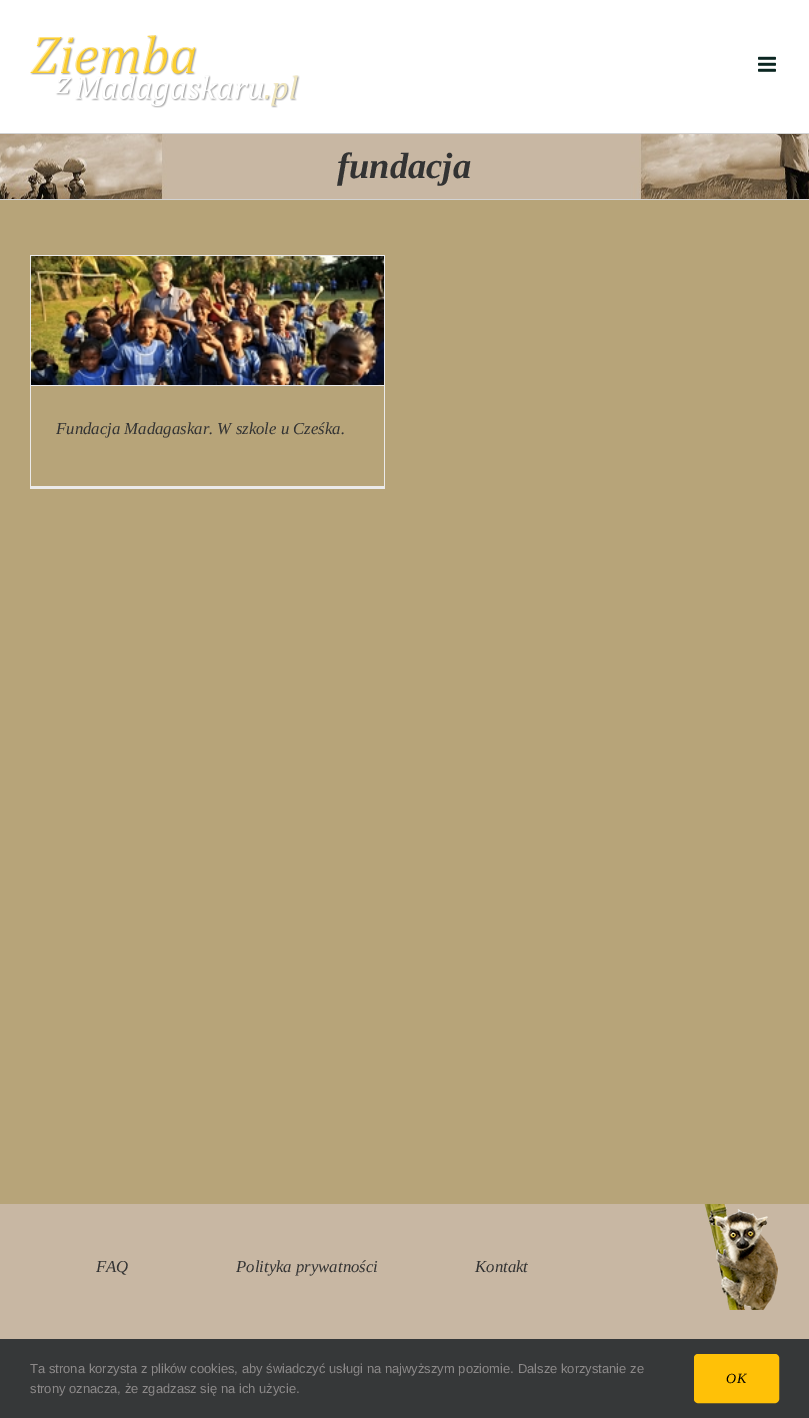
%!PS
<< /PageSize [809 1418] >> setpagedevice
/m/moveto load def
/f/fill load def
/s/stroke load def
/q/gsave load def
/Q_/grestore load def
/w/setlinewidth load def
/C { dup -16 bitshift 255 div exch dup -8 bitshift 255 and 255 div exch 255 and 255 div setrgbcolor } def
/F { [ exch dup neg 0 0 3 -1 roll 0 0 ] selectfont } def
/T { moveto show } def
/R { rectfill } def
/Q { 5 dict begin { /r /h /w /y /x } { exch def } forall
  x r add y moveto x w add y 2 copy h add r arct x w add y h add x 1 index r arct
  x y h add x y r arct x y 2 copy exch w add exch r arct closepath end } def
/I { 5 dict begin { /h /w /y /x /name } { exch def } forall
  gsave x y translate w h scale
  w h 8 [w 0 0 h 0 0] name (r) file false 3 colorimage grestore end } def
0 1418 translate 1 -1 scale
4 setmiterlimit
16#B7A479 C
0 0 809 1418 R
16#FFFFFF C
0 0 809 133 R
(1.rgb) 30 35 270 73 I
(2.rgb) 758 56 18 16 I
(3.rgb) 0 134 809 65 I
16#D2D3D4 C
0 133 809 1 R
0 199 809 1 R
/LiberationSerif-BoldItalic 36.5 F
16#333333 C
(fundacja) 337 178 T
16#EBEAEA C
30 255 355 1 R
384 255 1 234 R
30 486 355 3 R
30 255 1 234 R
31 385 353 1 R
(4.rgb) 31 256 353 129 I
/LiberationSerif-Italic 16.75 F
16#333333 C
(Fundacja Madagaskar. W szkole u Cześka.) 56 434 T
16#C8B7A3 C
0 1204 809 135 R
16#333333 C
(FAQ) 96 1272 T
(Polityka prywatności) 236 1272 T
(Kontakt) 475 1272 T
(5.rgb) 704 1204 75 106 I
16#363839 C
0 1339 809 79 R
/LiberationSans-Regular 13 F
16#8C8989 C
(Ta strona korzysta z plików cookies, aby świadczyć usługi na najwyższym poziomie. Dalsze korzystanie ze) 30 1373 T
(strony oznacza, że zgadzasz się na ich użycie.) 30 1393 T
16#FFC107 C
695.5 1355.5 82 46 2.5 Q q f Q_
3 w
s
/LiberationSerif-Italic 14 F
16#000000 C
726 1383 m 1 0 (OK) ashow
showpage
